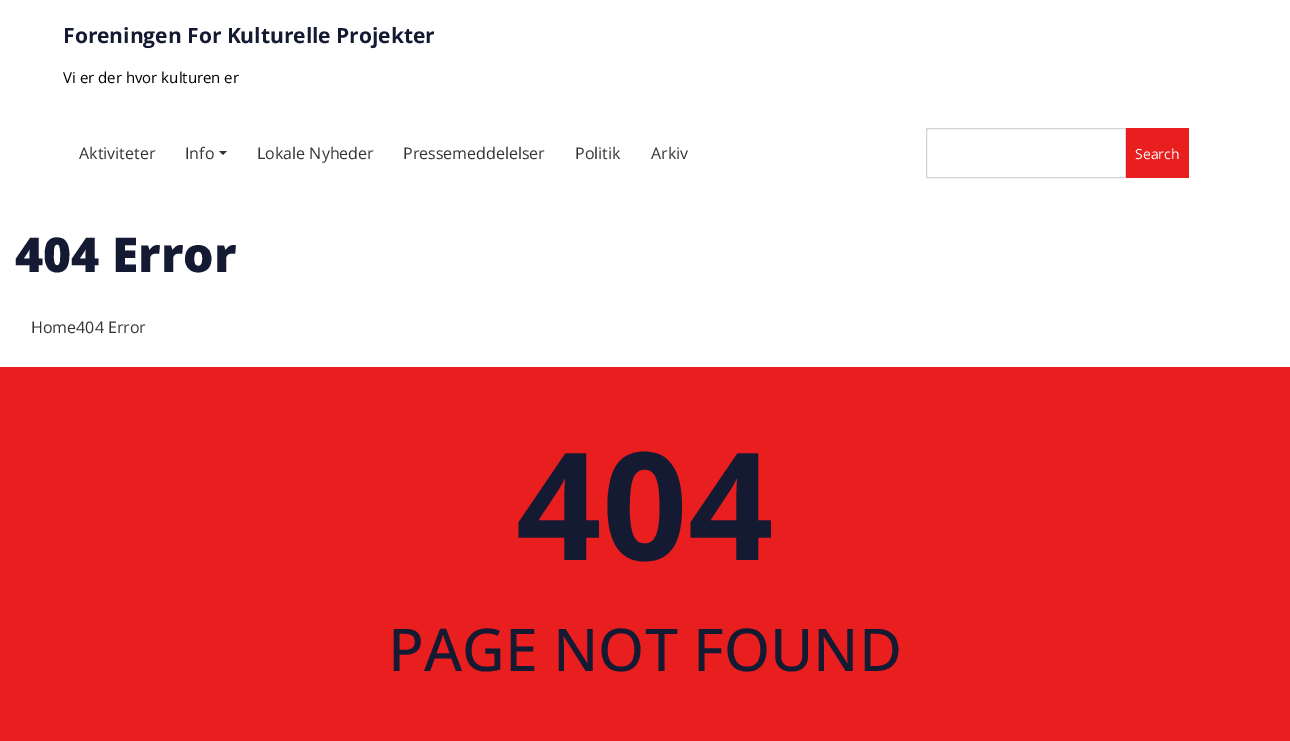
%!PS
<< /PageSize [1290 741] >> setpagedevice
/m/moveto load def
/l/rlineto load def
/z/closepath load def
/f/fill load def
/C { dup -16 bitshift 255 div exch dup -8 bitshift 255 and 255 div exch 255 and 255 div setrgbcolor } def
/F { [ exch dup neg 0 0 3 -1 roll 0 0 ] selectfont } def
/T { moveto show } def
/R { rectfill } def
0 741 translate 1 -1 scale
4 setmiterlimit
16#FFFFFF C
0 0 1290 741 R
/OpenSans-Bold 21 F
16#151A33 C
(Foreningen For Kulturelle Projekter) 63 43 T
/OpenSans-Regular 15 F
16#000000 C
(Vi er der hvor kulturen er) 63 83 T
/OpenSans-Regular 16 F
16#333333 C
(Aktiviteter) 79 159 T
(Info) 185 159 T
219 151 m 8 0 l -4 4 l z f
(Lokale Nyheder) 257 159 T
(Pressemeddelelser) 403 159 T
(Politik) 575 159 T
(Arkiv) 651 159 T
16#CED4DA C
926.5 128.5 199 49 rectstroke
16#E91E1E C
1126 128 63 50 R
/OpenSans-Regular 14 F
16#FFFFFF C
(Search) 1135 159 T
/OpenSans-ExtraBold 48 F
16#151A33 C
(404 Error) 15 272 T
/OpenSans-Regular 16 F
16#333333 C
(Home404 Error) 31 333 T
16#E91E1E C
0 367 1290 374 R
/OpenSans-Bold 150 F
16#151A33 C
(404) 516 560 T
/OpenSans-Medium 59 F
(PAGE NOT FOUND) 388 671 T
showpage
